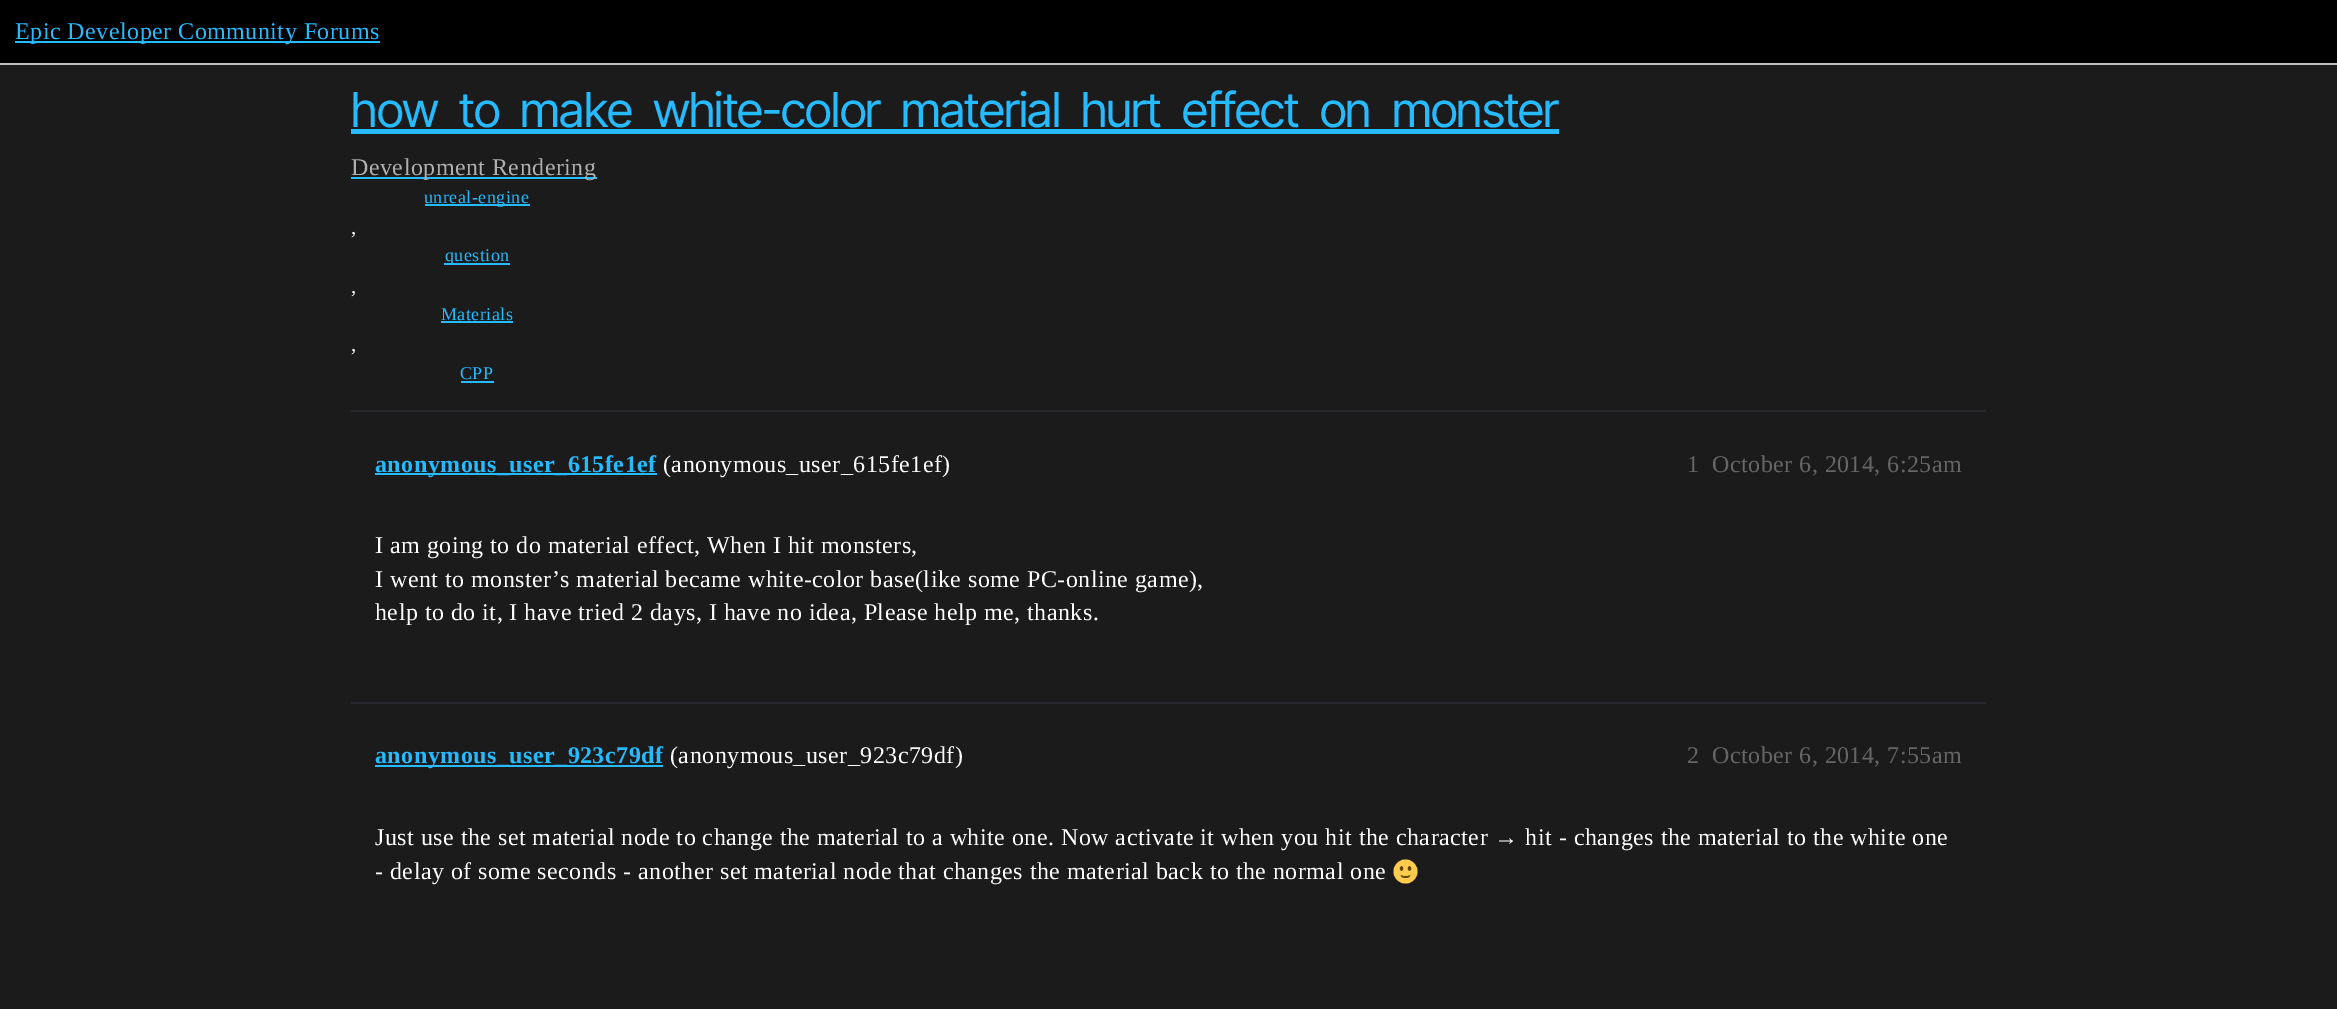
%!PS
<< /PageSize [2337 1009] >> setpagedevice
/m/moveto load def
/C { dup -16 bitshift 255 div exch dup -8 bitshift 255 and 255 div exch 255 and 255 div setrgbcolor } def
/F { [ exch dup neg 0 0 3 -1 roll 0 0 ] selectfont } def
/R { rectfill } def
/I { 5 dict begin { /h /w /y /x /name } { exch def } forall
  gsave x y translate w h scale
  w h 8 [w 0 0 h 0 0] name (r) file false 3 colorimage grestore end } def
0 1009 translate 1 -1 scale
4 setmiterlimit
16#1B1B1B C
0 0 2337 1009 R
16#000000 C
0 0 2337 63 R
16#BDBDBD C
0 63 2337 2 R
16#26BBFF C
15 41 365 2 R
/LiberationSerif-Regular 24 F
15 39 m .48 0 (Epic Developer Community Forums) ashow
/InterTight-Regular 48.25 F
351 127 m 10.25 0 32 -.75 0 (how to make white-color material hurt effect on monster) awidthshow
351 129 1208 5 R
351 177 246 2 R
/LiberationSerif-Regular 24 F
16#AFB0B0 C
351 175 m .48 0 (Development) ashow
492 175 m .48 0 (Rendering) ashow
16#26BBFF C
425 204 105 2 R
/LiberationSerif-Regular 18 F
424 203 m .48 0 (unreal-engine) ashow
/LiberationSerif-Regular 21 F
16#FFFFFF C
351 234 m .48 0 (,) ashow
16#26BBFF C
444 263 66 2 R
/LiberationSerif-Regular 18 F
445 261 m .48 0 (question) ashow
/LiberationSerif-Regular 21 F
16#FFFFFF C
351 293 m .48 0 (,) ashow
/LiberationSerif-Regular 18 F
16#26BBFF C
441 320 m .48 0 (Materials) ashow
441 321 72 2 R
/LiberationSerif-Regular 21 F
16#FFFFFF C
351 351 m .48 0 (,) ashow
/LiberationSerif-Regular 18 F
16#26BBFF C
460 379 m .48 0 (CPP) ashow
461 381 33 2 R
16#28282C C
351 410 1635 2 R
16#26BBFF C
375 473 282 2 R
/LiberationSerif-Bold 24 F
375 472 m .48 0 (anonymous_user_615fe1ef) ashow
/LiberationSerif-Regular 24 F
16#FFFFFF C
663 472 m .48 0 (\(anonymous_user_615fe1ef\)) ashow
16#666666 C
1687 472 m .48 0 (1) ashow
1712 472 m .48 0 (October 6, 2014, 6:25am) ashow
16#FFFFFF C
375 553 m .48 0 (I am going to do material effect, When I hit monsters,) ashow
375 587 m .48 0 (I went to monster’s material became white-color base\(like some PC-online game\),) ashow
375 620 m .48 0 (help to do it, I have tried 2 days, I have no idea, Please help me, thanks.) ashow
16#28282C C
351 702 1635 2 R
16#26BBFF C
375 765 288 2 R
/LiberationSerif-Bold 24 F
375 763 m .48 0 (anonymous_user_923c79df) ashow
/LiberationSerif-Regular 24 F
16#FFFFFF C
670 763 m .48 0 (\(anonymous_user_923c79df\)) ashow
16#666666 C
1687 763 m .48 0 (2) ashow
1712 763 m .48 0 (October 6, 2014, 7:55am) ashow
16#FFFFFF C
375 845 m .48 0 (Just use the set material node to change the material to a white one. Now activate it when you hit the character → hit - changes the material to the white one) ashow
375 879 m .48 0 (- delay of some seconds - another set material node that changes the material back to the normal one) ashow
(1.rgb) 1393 859 25 25 I
showpage
